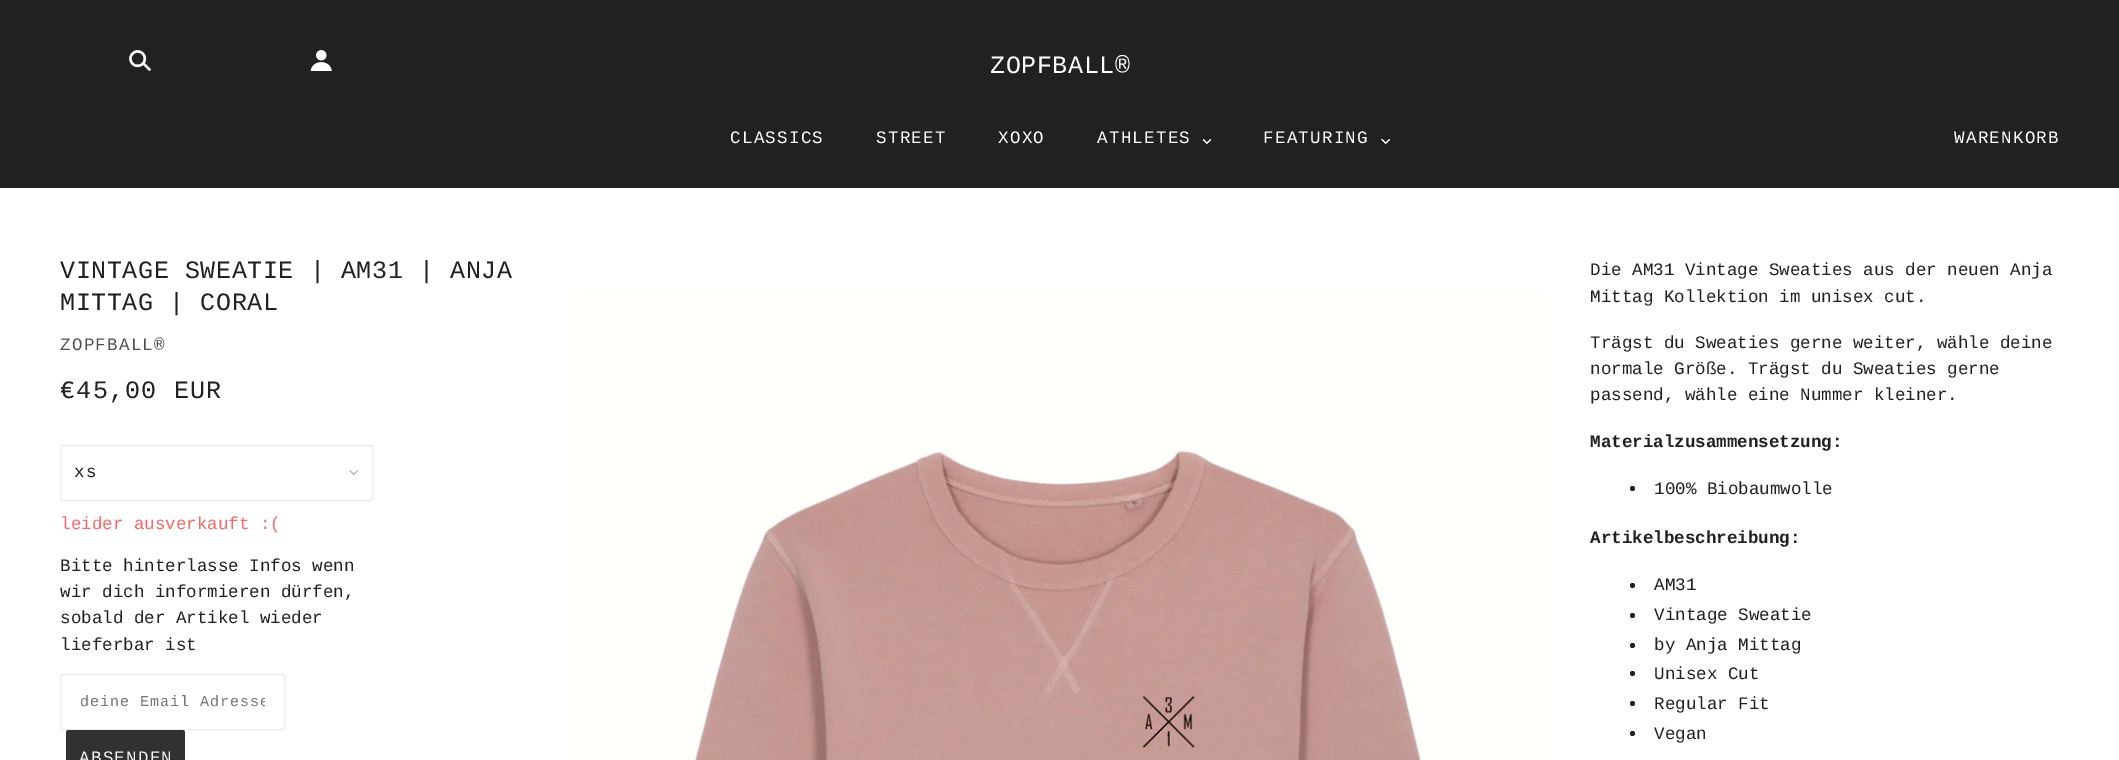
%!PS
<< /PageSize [2119 760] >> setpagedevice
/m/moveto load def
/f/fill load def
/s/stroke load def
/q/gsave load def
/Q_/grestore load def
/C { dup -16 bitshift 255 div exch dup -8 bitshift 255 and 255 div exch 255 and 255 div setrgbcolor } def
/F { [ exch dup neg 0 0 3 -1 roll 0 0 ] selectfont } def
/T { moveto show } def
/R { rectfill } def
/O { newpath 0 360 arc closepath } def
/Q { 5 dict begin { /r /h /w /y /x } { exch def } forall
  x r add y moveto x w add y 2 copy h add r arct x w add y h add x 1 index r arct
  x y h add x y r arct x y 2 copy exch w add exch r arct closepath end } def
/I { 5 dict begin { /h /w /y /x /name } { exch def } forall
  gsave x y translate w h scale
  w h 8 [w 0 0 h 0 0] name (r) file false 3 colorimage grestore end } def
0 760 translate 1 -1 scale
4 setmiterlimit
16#FFFFFF C
0 0 2119 760 R
16#212121 C
0 0 2119 188 R
(1.rgb) 129 50 22 21 I
(2.rgb) 310 50 22 21 I
/LiberationMono-Regular 25 F
16#FFFFFF C
990 73 m .6 0 (ZOPFBALL®) ashow
/LiberationMono-Regular 17.5 F
730 143 m 1.25 0 (CLASSICS) ashow
876 143 m 1.25 0 (STREET) ashow
998 143 m 1.25 0 (XOXO) ashow
1097 143 m 1.25 0 (ATHLETES) ashow
(3.rgb) 1203 139 8 5 I
1263 143 m 1.25 0 (FEATURING) ashow
(4.rgb) 1381 139 9 5 I
1954 143 m 1.25 0 (WARENKORB) ashow
/LiberationMono-Regular 25 F
16#212121 C
60 278 m .6 0 (VINTAGE SWEATIE | AM31 | ANJA) ashow
60 310 m .6 0 (MITTAG | CORAL) ashow
/LiberationMono-Regular 17.5 F
16#515151 C
60 350 m 1.25 0 (ZOPFBALL®) ashow
(5.rgb) 570 291 980 469 I
16#212121 C
(Die AM31 Vintage Sweaties aus der neuen Anja) 1590 275 T
(Mittag Kollektion im unisex cut.) 1590 302 T
(Trägst du Sweaties gerne weiter, wähle deine) 1590 348 T
(normale Größe. Trägst du Sweaties gerne) 1590 374 T
(passend, wähle eine Nummer kleiner.) 1590 400 T
/LiberationMono-Bold 17.5 F
(Materialzusammensetzung:) 1590 447 T
1632.5 488.5 2.5 O f
/LiberationMono-Regular 17.5 F
(100% Biobaumwolle) 1654 494 T
/LiberationMono-Bold 17.5 F
(Artikelbeschreibung:) 1590 543 T
1632.5 585.5 2.5 O f
/LiberationMono-Regular 17.5 F
(AM31) 1654 590 T
1632.5 615.5 2.5 O f
(Vintage Sweatie) 1654 620 T
1632.5 645.5 2.5 O f
(by Anja Mittag) 1654 650 T
1632.5 673.5 2.5 O f
(Unisex Cut) 1654 679 T
1632.5 703.5 2.5 O f
(Regular Fit) 1654 709 T
1632.5 733.5 2.5 O f
(Vegan) 1654 739 T
/LiberationMono-Regular 25 F
60 398 m 1.25 0 (€45,00 EUR) ashow
(6.rgb) 349 470 10 5 I
16#EBEBEB C
60.5 445.5 312 55 2 Q s
/LiberationMono-Regular 17.5 F
16#212121 C
74 477 m 1.25 0 (xs) ashow
16#F66767 C
(leider ausverkauft :\() 60 529 T
16#212121 C
(Bitte hinterlasse Infos wenn) 60 571 T
(wir dich informieren dürfen,) 60 597 T
(sobald der Artikel wieder) 60 623 T
(lieferbar ist) 60 650 T
16#EBEBEB C
60.5 674.5 224 55 2 Q s
q
80 694 185 17 rectclip
/LiberationMono-Regular 15 F
16#757575 C
80 706 m 1 0 (deine Email Adresse) ashow
Q_
16#313131 C
66 730 119 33 2.5 Q f
16#F7F7F7 C
79 763 m 1.25 0 (ABSENDEN) ashow
showpage
